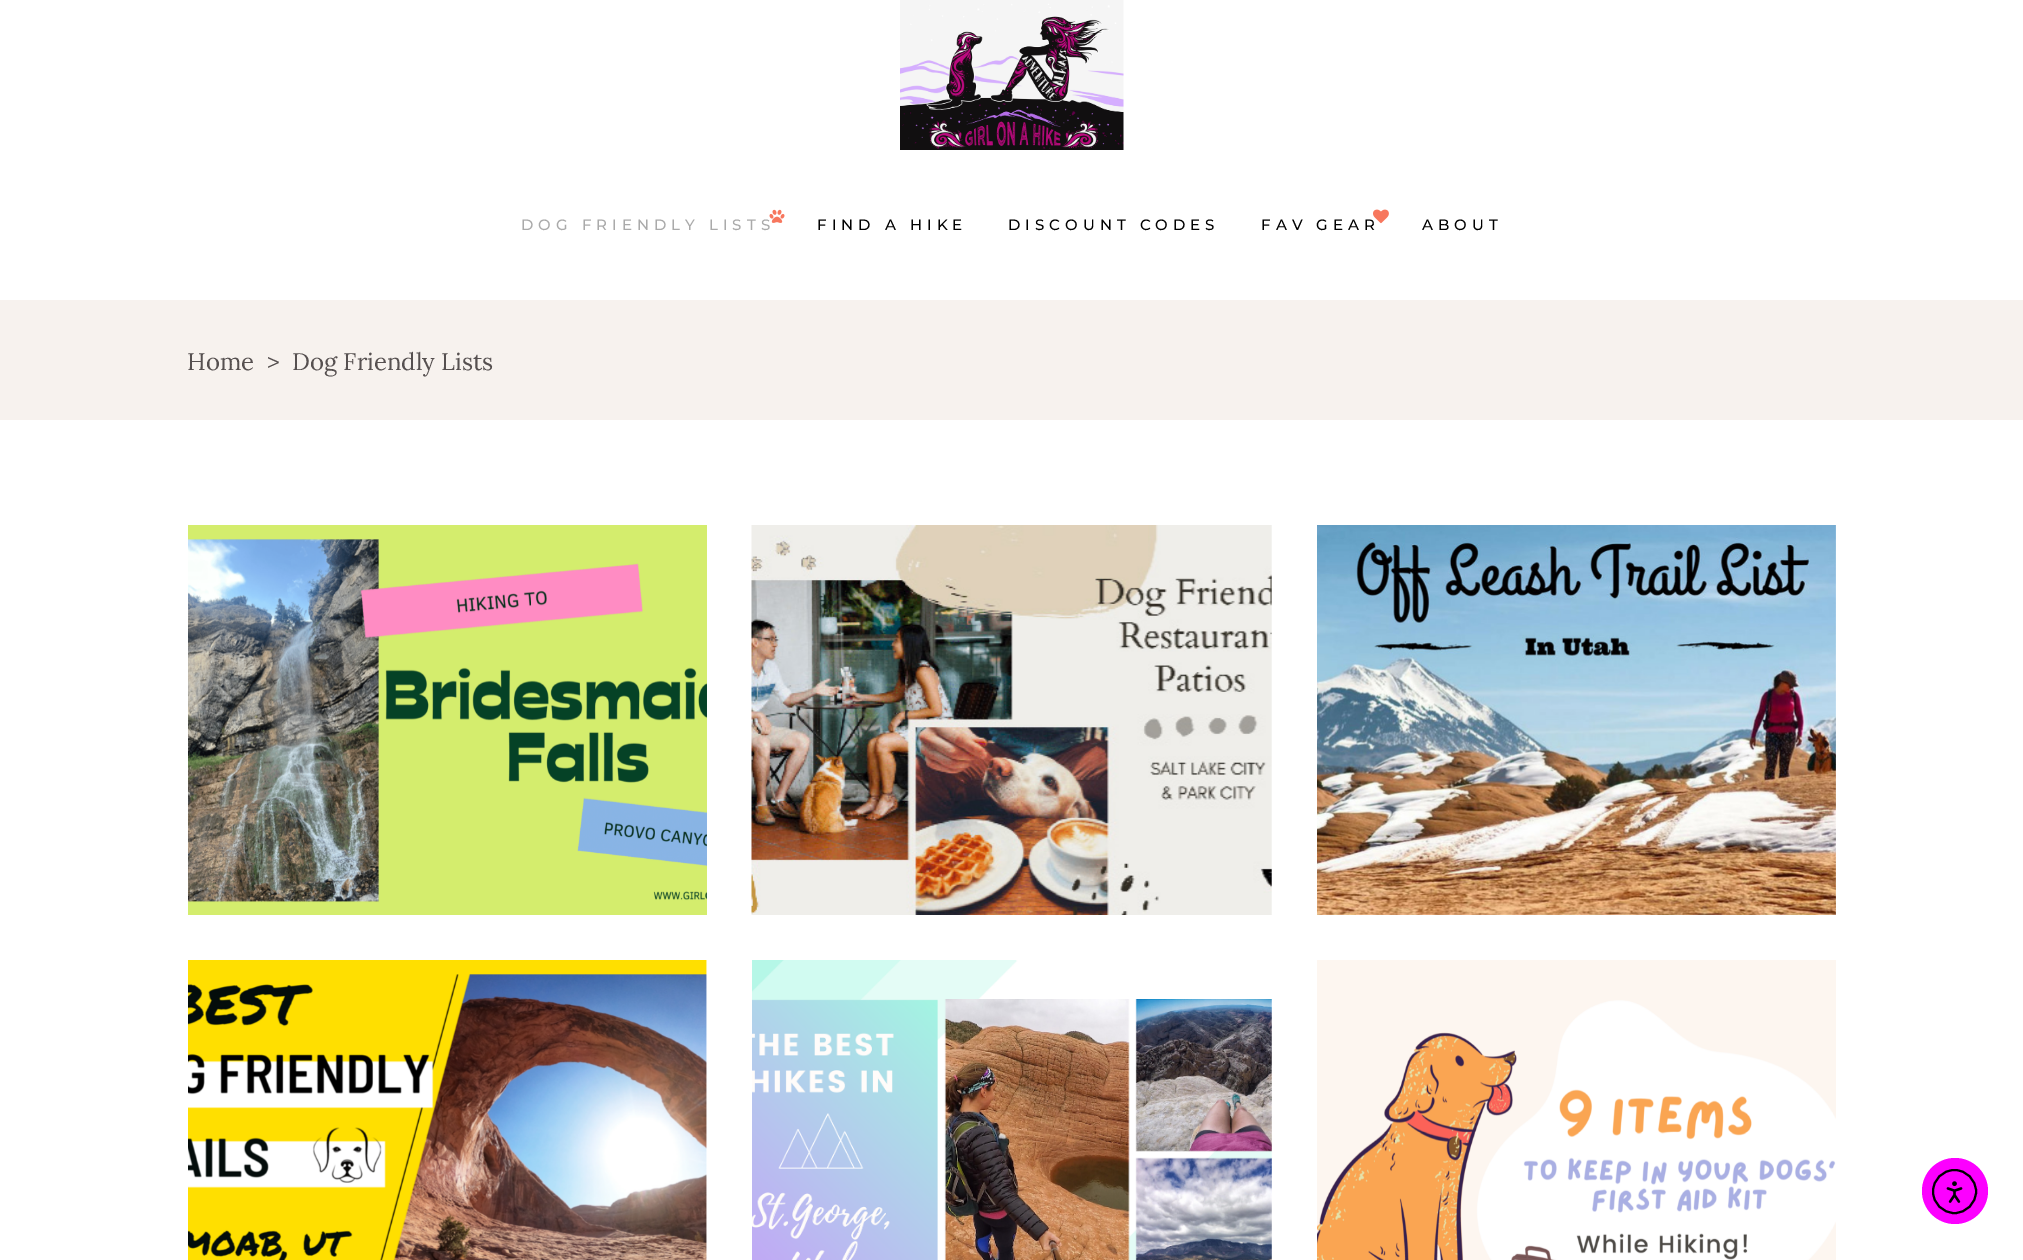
%!PS
<< /PageSize [2023 1260] >> setpagedevice
/m/moveto load def
/f/fill load def
/s/stroke load def
/w/setlinewidth load def
/C { dup -16 bitshift 255 div exch dup -8 bitshift 255 and 255 div exch 255 and 255 div setrgbcolor } def
/F { [ exch dup neg 0 0 3 -1 roll 0 0 ] selectfont } def
/T { moveto show } def
/R { rectfill } def
/O { newpath 0 360 arc closepath } def
/I { 5 dict begin { /h /w /y /x /name } { exch def } forall
  gsave x y translate w h scale
  w h 8 [w 0 0 h 0 0] name (r) file false 3 colorimage grestore end } def
0 1260 translate 1 -1 scale
4 setmiterlimit
16#FFFFFF C
0 0 2023 1260 R
(1.rgb) 900 0 224 150 I
(2.rgb) 769 209 16 14 I
/Montserrat-Medium 15 F
16#AAAAAA C
521 230 m 5 0 (DOG FRIENDLY LISTS) ashow
16#000000 C
817 230 m 5 0 (FIND A HIKE) ashow
1008 230 m 5 0 (DISCOUNT CODES) ashow
1261 230 m 5 0 (FAV GEAR) ashow
(3.rgb) 1373 209 16 15 I
1422 230 m 5 0 (ABOUT) ashow
16#F7F2EE C
0 300 2023 120 R
/Lora-Regular 24 F
16#565050 C
(Home) 187 370 T
(>) 267 370 T
(Dog Friendly Lists) 292 370 T
(4.rgb) 188 525 519 390 I
(5.rgb) 751 525 521 390 I
(6.rgb) 1317 525 519 390 I
(7.rgb) 188 960 519 300 I
(8.rgb) 752 960 520 300 I
(9.rgb) 1317 960 519 300 I
16#FC00FF C
1955 1191 33 O f
16#000000 C
2 w
1954.5 1191.5 21.5 O s
(10.rgb) 1946 1181 17 22 I
showpage
